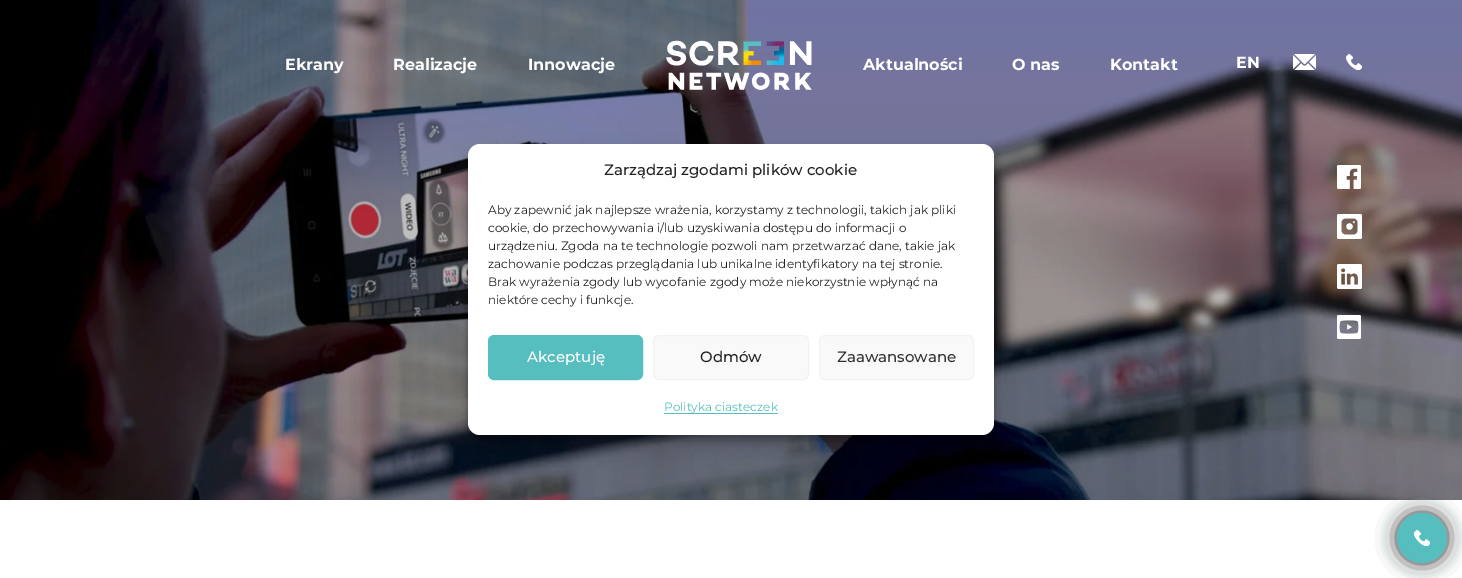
%!PS
<< /PageSize [1462 578] /PageUsesTransparency true >> setpagedevice
/f/fill load def
/s/stroke load def
/q/gsave load def
/Q_/grestore load def
/w/setlinewidth load def
/C { dup -16 bitshift 255 div exch dup -8 bitshift 255 and 255 div exch 255 and 255 div setrgbcolor } def
/F { [ exch dup neg 0 0 3 -1 roll 0 0 ] selectfont } def
/T { moveto show } def
/R { rectfill } def
/A { dup .setfillconstantalpha .setstrokeconstantalpha } def
/O { newpath 0 360 arc closepath } def
/Q { 5 dict begin { /r /h /w /y /x } { exch def } forall
  x r add y moveto x w add y 2 copy h add r arct x w add y h add x 1 index r arct
  x y h add x y r arct x y 2 copy exch w add exch r arct closepath end } def
/S { 12 dict begin { /a /b /q /h /w /y /x } { exch def } forall gsave /was 0 def
  9 -2 -9 { dup b mul 4 div /e exch def 1 sub .425 mul 2.718 exch exp 1 add a .99 .min exch div /now exch def
    1 1 now sub 1 was sub div sub A /was now def
    w h .min e 2 mul add 0 gt { x e sub y e sub w e 2 mul add h e 2 mul add
      q e add b .6 mul add w h .min 2 div e add .min 0 .max Q fill } if } for grestore end } def
/I { 5 dict begin { /h /w /y /x /name } { exch def } forall
  gsave x y translate w h scale
  w h 8 [w 0 0 h 0 0] name (r) file false 3 colorimage grestore end } def
0 .pushpdf14devicefilter
0 578 translate 1 -1 scale
4 setmiterlimit
16#FFFFFF C
0 0 1462 578 R
(1.rgb) 0 0 1462 500 I
(2.rgb) 1337 165 24 24 I
(3.rgb) 1337 214 25 25 I
(4.rgb) 1337 264 25 25 I
(5.rgb) 1337 315 24 24 I
/Montserrat-Bold 16 F
(Ekrany) 285 70 T
(Realizacje) 393 70 T
(Innowacje) 528 70 T
(6.rgb) 666 40 146 50 I
(Aktualności) 863 70 T
(O nas) 1012 70 T
(Kontakt) 1110 70 T
(EN) 1236 68 T
(7.rgb) 1293 54 23 16 I
(8.rgb) 1346 54 16 16 I
16#000000 C
468 150 526 291 12 3 .23 S
468 154 526 291 12 10 .19 S
16#FFFFFF C
468 144 526 291 12 Q f
/Montserrat-Medium 15 F
16#222222 C
(Zarządzaj zgodami plików cookie) 604 175 T
/Montserrat-Regular 12 F
(Aby zapewnić jak najlepsze wrażenia, korzystamy z technologii, takich jak pliki) 488 214 T
(cookie, do przechowywania i/lub uzyskiwania dostępu do informacji o) 488 232 T
(urządzeniu. Zgoda na te technologie pozwoli nam przetwarzać dane, takie jak) 488 250 T
(zachowanie podczas przeglądania lub unikalne identyfikatory na tej stronie.) 488 268 T
(Brak wyrażenia zgody lub wycofanie zgody może niekorzystnie wpłynąć na) 488 286 T
(niektóre cechy i funkcje.) 488 304 T
16#56BEBF C
488.5 335.5 154 44 5.5 Q q f Q_
s
/Montserrat-Medium 15 F
16#FFFFFF C
(Akceptuję) 527 362 T
16#F9F9F9 C
653.5 335.5 155 44 5.5 Q q f Q_
16#F2F2F2 C
s
16#222222 C
(Odmów) 700 362 T
16#F9F9F9 C
819.5 335.5 154 44 5.5 Q q f Q_
16#F2F2F2 C
s
16#333333 C
(Zaawansowane) 837 362 T
16#56BEBF C
664 413 114 1 R
/Montserrat-Regular 12 F
(Polityka ciasteczek) 664 411 T
16#2F2F2F C
1397 513 50 50 25 10 1 S
16#56BEBF C
1422 538 25 O f
0.1 A
2 w
1422 538 39 O s
1 A
(9.rgb) 1414 530 16 16 I
.poppdf14devicefilter showpage
